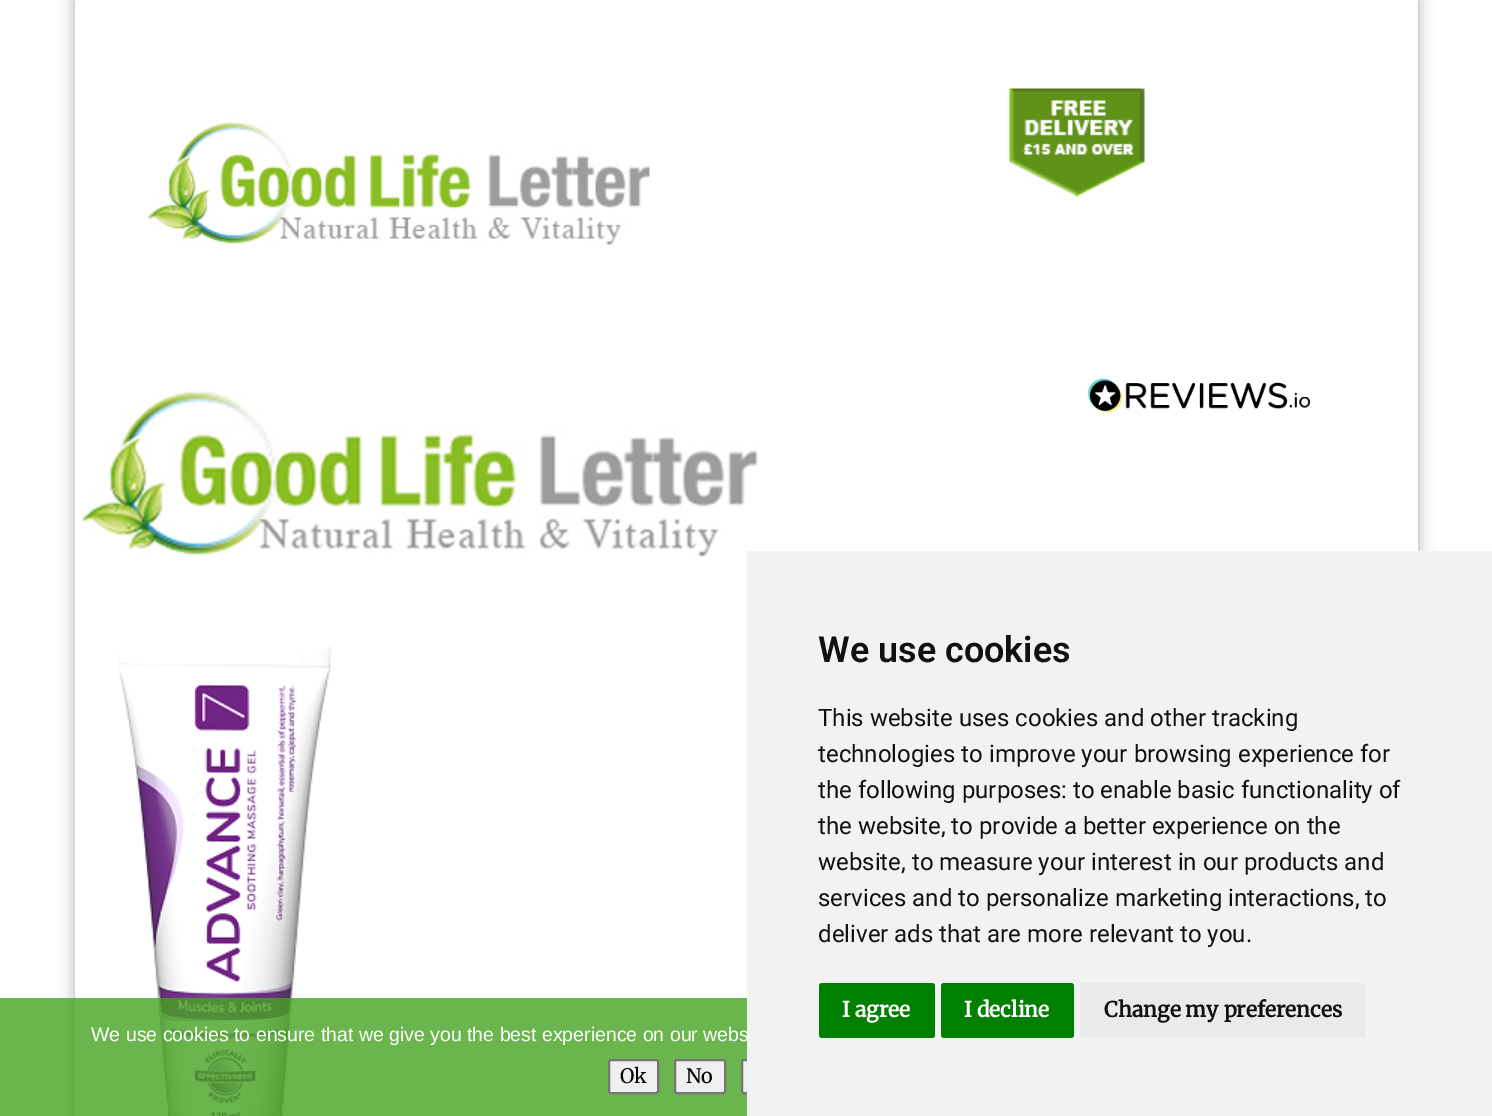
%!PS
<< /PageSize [1492 1116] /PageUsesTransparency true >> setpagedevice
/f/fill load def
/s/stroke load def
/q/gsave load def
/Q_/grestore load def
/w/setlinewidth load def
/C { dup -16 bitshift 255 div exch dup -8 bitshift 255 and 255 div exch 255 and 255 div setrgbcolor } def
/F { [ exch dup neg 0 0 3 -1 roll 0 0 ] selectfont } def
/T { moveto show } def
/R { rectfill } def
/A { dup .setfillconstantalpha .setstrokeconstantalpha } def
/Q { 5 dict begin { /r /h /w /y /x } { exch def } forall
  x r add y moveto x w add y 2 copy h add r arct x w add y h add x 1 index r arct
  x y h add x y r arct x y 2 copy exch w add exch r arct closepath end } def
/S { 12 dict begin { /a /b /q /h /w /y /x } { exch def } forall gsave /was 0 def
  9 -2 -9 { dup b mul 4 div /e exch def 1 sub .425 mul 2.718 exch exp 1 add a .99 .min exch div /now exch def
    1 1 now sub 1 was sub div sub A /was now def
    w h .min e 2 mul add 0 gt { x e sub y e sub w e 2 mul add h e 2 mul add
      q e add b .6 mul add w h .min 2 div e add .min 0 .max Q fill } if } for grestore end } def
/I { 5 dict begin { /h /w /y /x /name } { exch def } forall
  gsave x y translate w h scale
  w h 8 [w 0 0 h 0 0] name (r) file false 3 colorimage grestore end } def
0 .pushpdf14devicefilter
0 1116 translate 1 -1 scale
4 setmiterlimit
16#FFFFFF C
0 0 1492 1116 R
16#AAAAAA C
75 0 1343 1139 0 7.5 1 S
16#FFFFFF C
75 0 1343 1116 R
(1.rgb) 148 88 997 157 I
(2.rgb) 1087 378 224 35 I
(3.rgb) 82 391 676 166 I
(4.rgb) 118 646 214 470 I
0.8 A
16#46A322 C
0 998 747 118 R
/LiberationSans-Regular 19.5 F
1 A
16#FFFFFF C
(We use cookies to ensure that we give you the best experience on our webs) 91 1041 T
16#EFEFEF C
742 1060 157 33 2 Q q f Q_
16#767676 C
2 w
s
16#F2F2F2 C
747 551 745 565 R
/Roboto-SemiBold 36 F
16#111111 C
(We use cookies) 818 662 T
/Roboto-Regular 24 F
(This website uses cookies and other tracking) 818 726 T
(technologies to improve your browsing experience for) 818 762 T
(the following purposes: to enable basic functionality of) 818 798 T
(the website, to provide a better experience on the) 818 834 T
(website, to measure your interest in our products and) 818 870 T
(services and to personalize marketing interactions, to) 818 906 T
(deliver ads that are more relevant to you.) 818 942 T
16#008000 C
819 983 116 55 3 Q f
/Merriweather-Bold 21 F
16#FFFFFF C
(I agree) 842 1017 T
16#008000 C
941 983 133 55 3 Q f
16#FFFFFF C
(I decline) 964 1017 T
16#EAEAEA C
1080 983 285 55 3 Q f
16#111111 C
(Change my preferences) 1104 1017 T
16#EFEFEF C
609 1060 49 33 2 Q q f Q_
16#767676 C
s
/Merriweather-Light 20 F
16#000000 C
(Ok) 620 1083 T
16#EFEFEF C
675 1060 50 33 2 Q q f Q_
16#767676 C
s
16#000000 C
(No) 686 1083 T
.poppdf14devicefilter showpage
